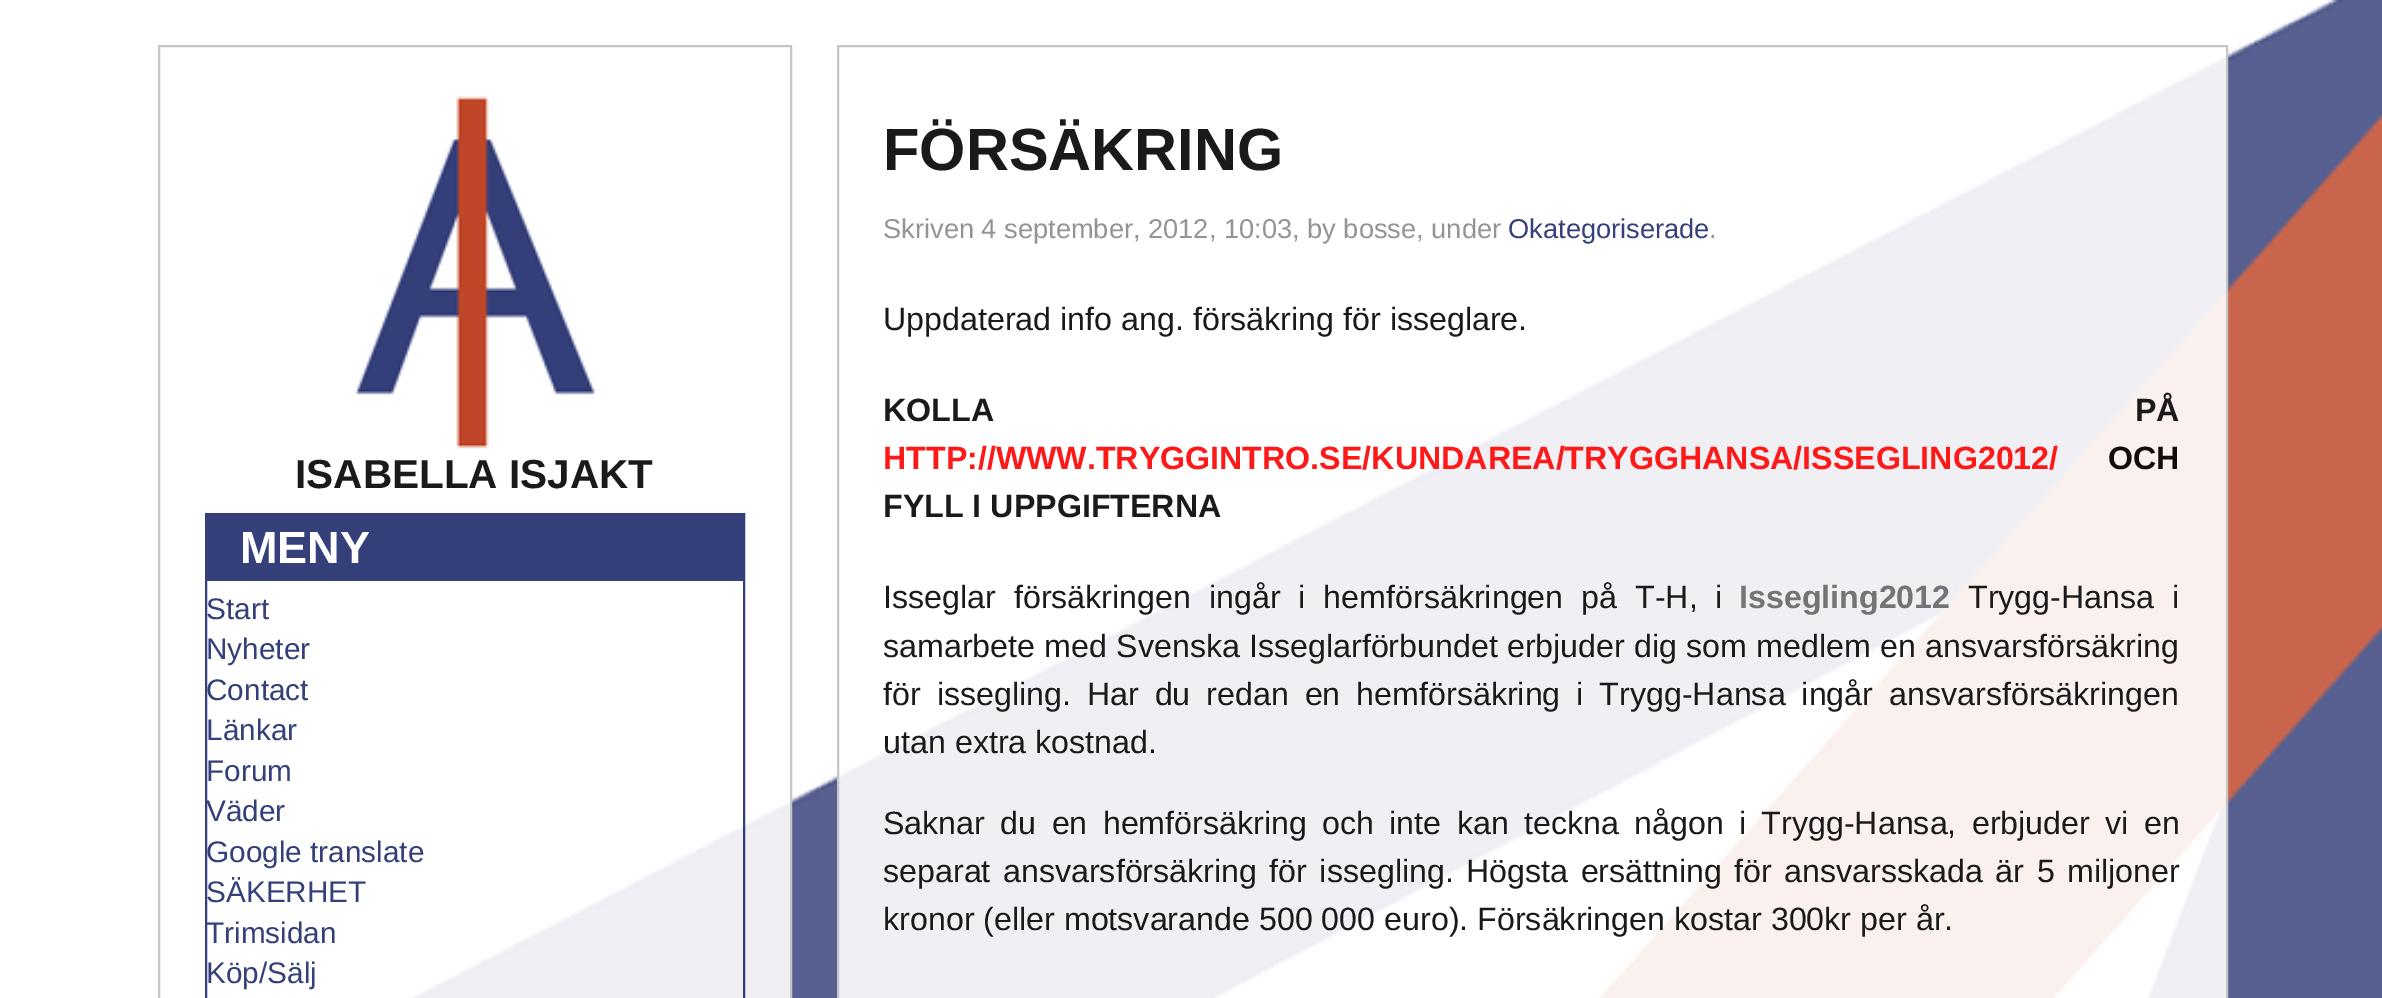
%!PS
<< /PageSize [2382 998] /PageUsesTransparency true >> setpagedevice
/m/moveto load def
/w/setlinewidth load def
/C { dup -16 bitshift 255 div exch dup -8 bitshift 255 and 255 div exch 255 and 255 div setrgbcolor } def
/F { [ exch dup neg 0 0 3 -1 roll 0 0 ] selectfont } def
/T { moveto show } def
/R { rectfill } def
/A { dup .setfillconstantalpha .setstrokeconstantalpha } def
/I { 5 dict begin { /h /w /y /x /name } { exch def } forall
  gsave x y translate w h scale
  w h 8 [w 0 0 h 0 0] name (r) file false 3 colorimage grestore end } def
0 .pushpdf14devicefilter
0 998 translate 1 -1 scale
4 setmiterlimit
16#FFFFFF C
0 0 2382 998 R
(1.rgb) 407 0 1975 998 I
0.9 A
407 797 385 201 R
16#C0C0C0 C
2 w
159 46 632 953 rectstroke
1 A
(2.rgb) 355 96 240 353 I
/LiberationSans-Bold 40.5 F
16#1A1A1A C
(ISABELLA ISJAKT) 295 488 T
0.9 A
16#1F2B6B C
206 514 538 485 rectstroke
1 A
16#35407A C
207 515 536 66 R
/LiberationSans-Bold 45 F
16#FFFFFF C
(MENY) 240 563 T
/LiberationSans-Regular 29.75 F
16#35407A C
(Start) 206 619 T
(Nyheter) 206 659 T
(Contact) 206 700 T
(Länkar) 206 740 T
(Forum) 206 781 T
(Väder) 206 821 T
(Google translate) 206 862 T
(SÄKERHET) 206 902 T
(Trimsidan) 206 943 T
(Köp/Sälj) 206 983 T
0.9 A
16#FFFFFF C
837 52 1391 946 R
16#C0C0C0 C
838 46 1389 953 rectstroke
/LiberationSans-Bold 59.5 F
1 A
16#1A1A1A C
(FÖRSÄKRING) 883 170 T
/LiberationSans-Regular 27.25 F
16#949494 C
(Skriven 4 september, 2012, 10:03, by bosse, under) 883 238 T
16#35407A C
(Okategoriserade) 1508 238 T
16#949494 C
(.) 1709 238 T
/LiberationSans-Regular 32.2 F
16#1A1A1A C
(Uppdaterad info ang. försäkring för isseglare.) 883 330 T
/LiberationSans-Bold 32.2 F
883 421 m 1132 0 32 (KOLLA PÅ) widthshow
16#FE1919 C
(HTTP://WWW.TRYGGINTRO.SE/KUNDAREA/TRYGGHANSA/ISSEGLING2012/) 883 469 T
16#140A08 C
(OCH) 2108 469 T
16#1A1A1A C
(FYLL I UPPGIFTERNA) 883 517 T
/LiberationSans-Regular 32.2 F
883 608 m 9 0 32 (Isseglar försäkringen ingår i hemförsäkringen på T-H, i) widthshow
/LiberationSans-Bold 32.2 F
16#747474 C
(Issegling2012) 1739 608 T
/LiberationSans-Regular 32.2 F
16#1A1A1A C
1968 608 m 9 0 32 (Trygg-Hansa i) widthshow
883 657 m .25 0 32 (samarbete med Svenska Isseglarförbundet erbjuder dig som medlem en ansvarsförsäkring) widthshow
883 705 m 7 0 32 (för issegling. Har du redan en hemförsäkring i Trygg-Hansa ingår ansvarsförsäkringen) widthshow
(utan extra kostnad.) 883 753 T
883 834 m 6.4 0 32 (Saknar du en hemförsäkring och inte kan teckna någon i Trygg-Hansa, erbjuder vi en) widthshow
883 882 m 3.5 0 32 (separat ansvarsförsäkring för issegling. Högsta ersättning för ansvarsskada är 5 miljoner) widthshow
(kronor \(eller motsvarande 500 000 euro\). Försäkringen kostar 300kr per år.) 883 930 T
.poppdf14devicefilter showpage
